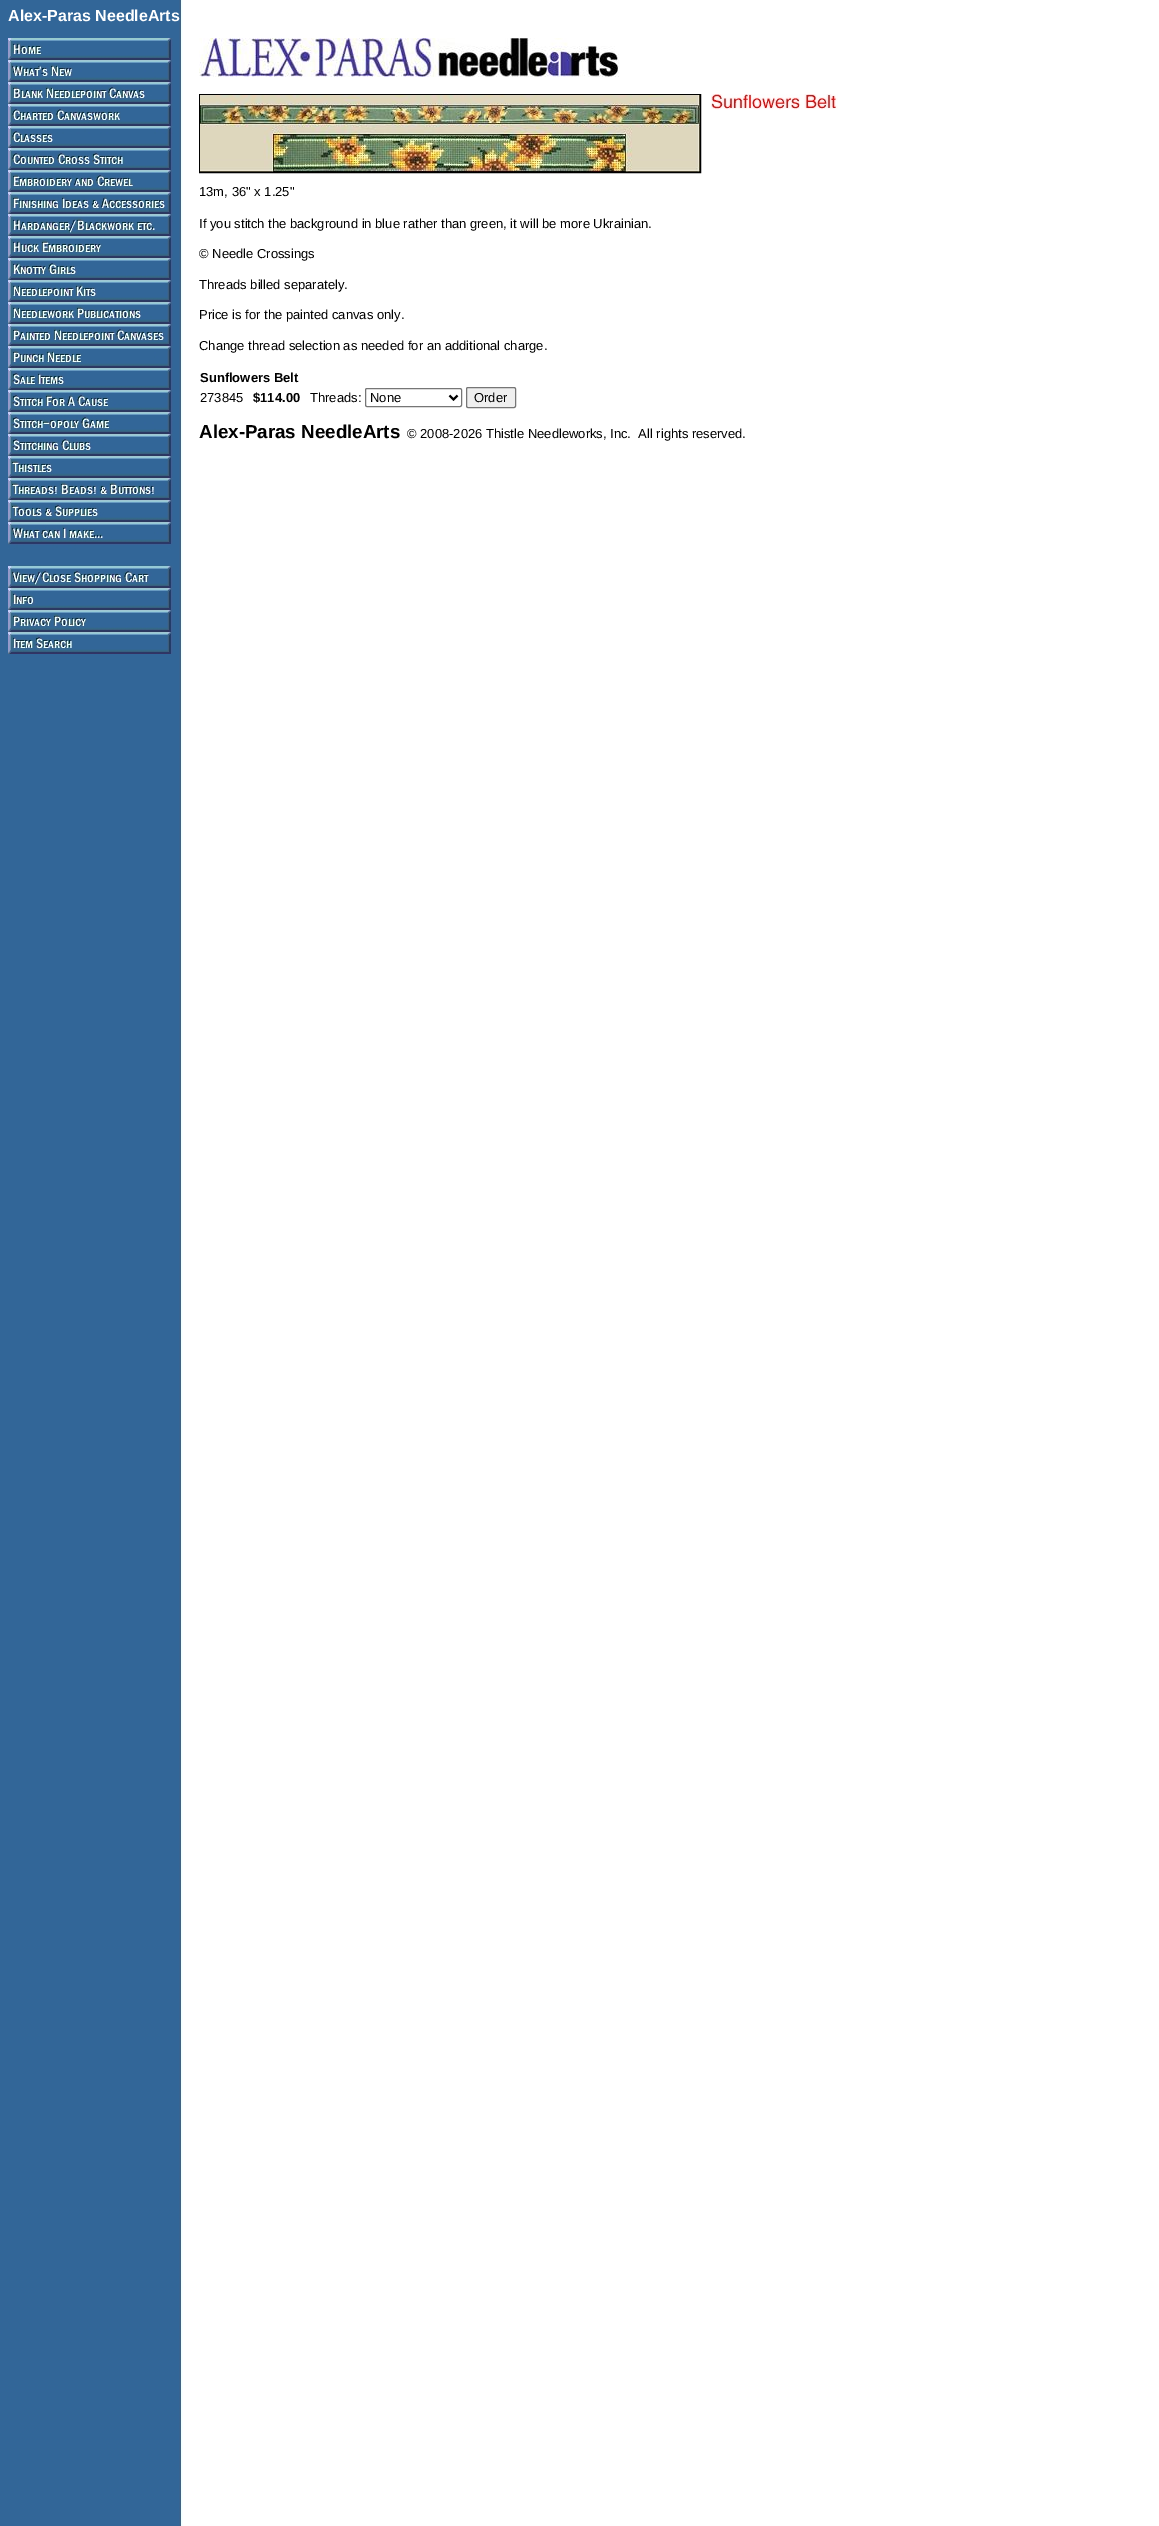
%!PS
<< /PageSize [1159 2526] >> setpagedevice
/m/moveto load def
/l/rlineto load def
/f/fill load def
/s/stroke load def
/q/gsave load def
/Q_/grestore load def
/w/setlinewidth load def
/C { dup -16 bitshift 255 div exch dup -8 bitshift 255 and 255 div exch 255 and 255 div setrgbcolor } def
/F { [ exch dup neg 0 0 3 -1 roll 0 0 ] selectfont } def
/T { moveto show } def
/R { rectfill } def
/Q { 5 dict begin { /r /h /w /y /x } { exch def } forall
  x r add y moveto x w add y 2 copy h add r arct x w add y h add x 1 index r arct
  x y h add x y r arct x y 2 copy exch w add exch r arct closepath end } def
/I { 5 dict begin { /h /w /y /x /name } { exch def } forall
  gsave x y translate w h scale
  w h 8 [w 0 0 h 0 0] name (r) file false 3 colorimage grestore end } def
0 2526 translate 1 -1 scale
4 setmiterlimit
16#FFFFFF C
0 0 1159 2526 R
(1.rgb) 0 0 183 2526 I
/LiberationSans-Bold 16 F
(Alex-Paras NeedleArts) 8 21 T
(2.rgb) 8 38 165 616 I
(3.rgb) 199 38 420 39 I
16#000000 C
199.5 94.5 501 78 rectstroke
(4.rgb) 200 95 500 77 I
(5.rgb) 711 94 127 16 I
/LiberationSans-Regular 13 F
(13m, 36" x 1.25") 199 196 T
(If you stitch the background in blue rather than green, it will be more Ukrainian.) 199 228 T
(© Needle Crossings) 199 258 T
(Threads billed separately.) 199 289 T
(Price is for the painted canvas only.) 199 319 T
(Change thread selection as needed for an additional charge.) 199 350 T
/LiberationSans-Bold 13 F
(Sunflowers Belt) 200 382 T
/LiberationSans-Regular 13 F
(273845) 200 402 T
/LiberationSans-Bold 13 F
($114.00) 253 402 T
/LiberationSans-Regular 13 F
(Threads:) 310 402 T
16#767676 C
365.5 388.5 96 18 1.5 Q s
16#000000 C
2 w
449.5 395.5 m 4 4 l 4 -4 l s
(None) 370 402 T
16#EFEFEF C
466.5 387.5 49 20 1.5 Q q f Q_
16#767676 C
1 w
s
16#000000 C
(Order) 474 402 T
/LiberationSans-Bold 18.75 F
(Alex-Paras NeedleArts) 199 438 T
/LiberationSans-Regular 13 F
(© 2008-2026 Thistle Needleworks, Inc.  All rights reserved.) 407 438 T
showpage
